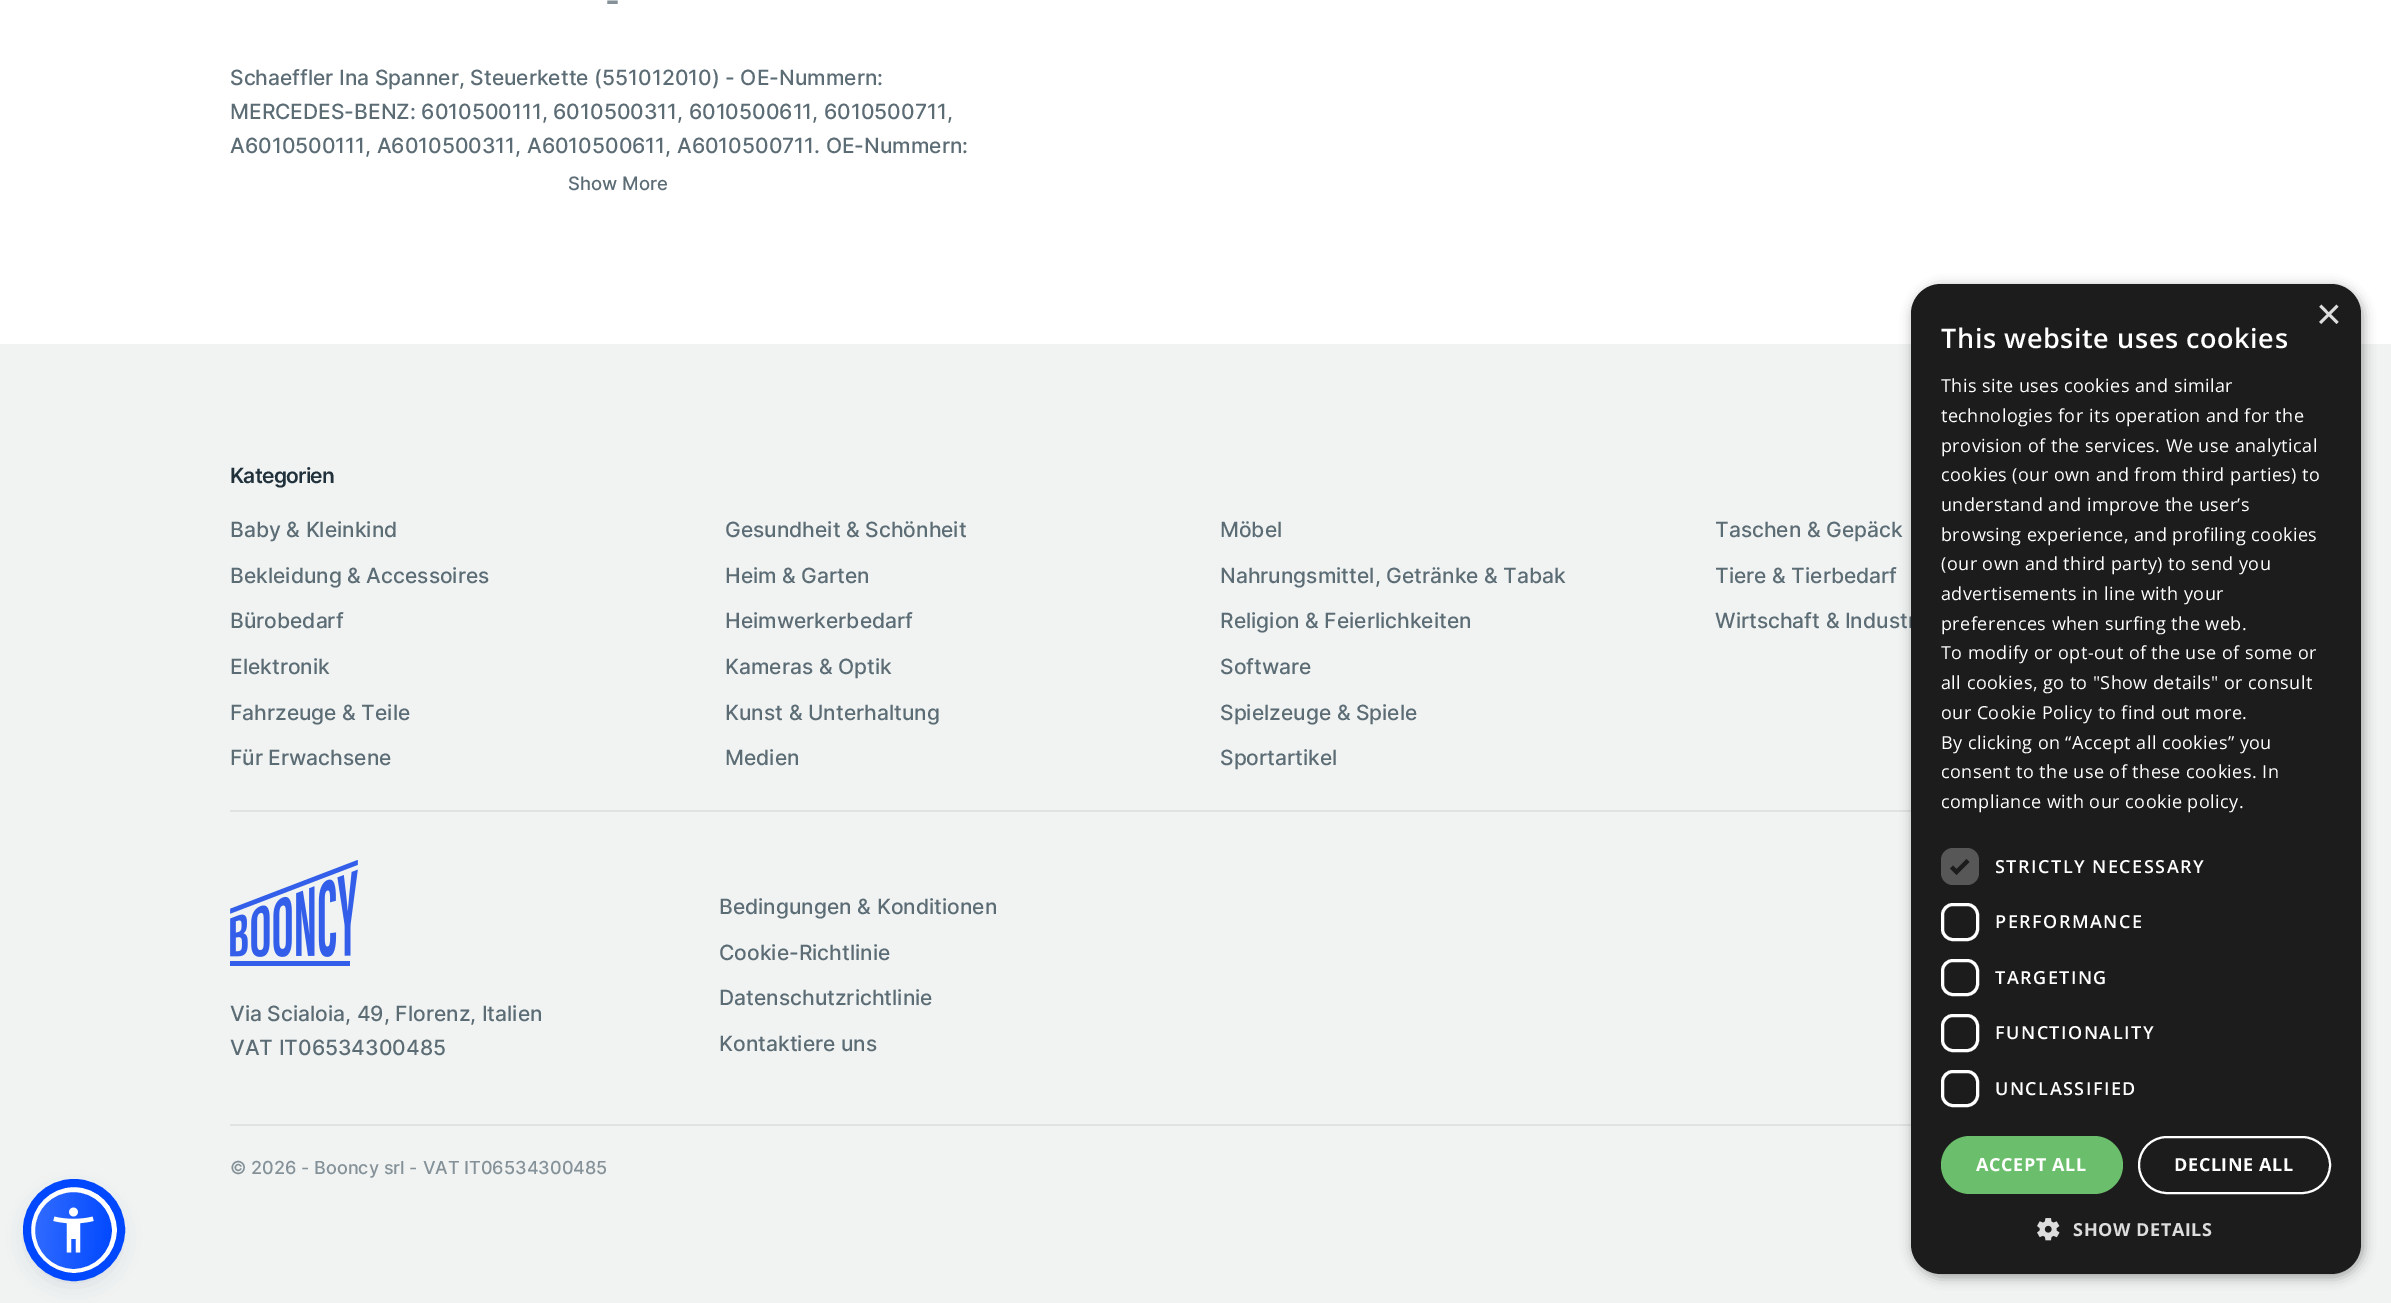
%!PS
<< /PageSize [2391 1303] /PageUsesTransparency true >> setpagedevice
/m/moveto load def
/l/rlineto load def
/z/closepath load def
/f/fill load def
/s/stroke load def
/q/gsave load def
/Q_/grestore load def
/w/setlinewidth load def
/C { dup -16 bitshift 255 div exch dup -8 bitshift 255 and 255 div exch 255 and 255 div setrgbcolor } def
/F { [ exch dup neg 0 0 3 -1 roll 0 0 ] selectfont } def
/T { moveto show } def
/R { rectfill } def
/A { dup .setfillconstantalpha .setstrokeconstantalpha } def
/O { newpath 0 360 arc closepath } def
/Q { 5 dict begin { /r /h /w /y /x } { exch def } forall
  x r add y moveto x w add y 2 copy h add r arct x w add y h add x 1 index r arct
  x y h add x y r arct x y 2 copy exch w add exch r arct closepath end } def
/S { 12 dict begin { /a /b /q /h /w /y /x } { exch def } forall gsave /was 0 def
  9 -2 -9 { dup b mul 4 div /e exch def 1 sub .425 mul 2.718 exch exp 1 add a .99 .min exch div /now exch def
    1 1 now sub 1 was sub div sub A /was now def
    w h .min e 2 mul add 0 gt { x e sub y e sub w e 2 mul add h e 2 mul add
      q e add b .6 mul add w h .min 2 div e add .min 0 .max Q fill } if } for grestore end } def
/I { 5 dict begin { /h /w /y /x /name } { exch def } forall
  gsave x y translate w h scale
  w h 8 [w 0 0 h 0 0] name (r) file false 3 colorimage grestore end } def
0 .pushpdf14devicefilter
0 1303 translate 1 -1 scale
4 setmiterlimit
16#FFFFFF C
0 0 2391 1303 R
/Inter-SemiBold 32 F
16#859198 C
605 12 m -.75 0 (-) ashow
/Inter-Medium 21 F
16#5C6C75 C
(Schaeffler Ina Spanner, Steuerkette \(551012010\) - OE-Nummern:) 230 85 T
(MERCEDES-BENZ: 6010500111, 6010500311, 6010500611, 6010500711,) 230 119 T
(A6010500111, A6010500311, A6010500611, A6010500711. OE-Nummern:) 230 153 T
/Inter-Medium 18.5 F
(Show More) 568 190 T
16#F0F3F2 C
0 344 2391 959 R
/Inter-SemiBold 21 F
16#21313C C
230 483 m -.75 0 (Kategorien) ashow
/Inter-Medium 21 F
16#5C6C75 C
(Baby & Kleinkind) 230 537 T
(Bekleidung & Accessoires) 230 583 T
(Bürobedarf) 230 628 T
(Elektronik) 230 674 T
(Fahrzeuge & Teile) 230 720 T
(Für Erwachsene) 230 765 T
(Gesundheit & Schönheit) 725 537 T
(Heim & Garten) 725 583 T
(Heimwerkerbedarf) 725 628 T
(Kameras & Optik) 725 674 T
(Kunst & Unterhaltung) 725 720 T
(Medien) 725 765 T
(Möbel) 1220 537 T
(Nahrungsmittel, Getränke & Tabak) 1220 583 T
(Religion & Feierlichkeiten) 1220 628 T
(Software) 1220 674 T
(Spielzeuge & Spiele) 1220 720 T
(Sportartikel) 1220 765 T
(Taschen & Gepäck) 1715 537 T
(Tiere & Tierbedarf) 1715 583 T
(Wirtschaft & Industr) 1715 628 T
16#DFE2E1 C
230 810 1681 2 R
(1.rgb) 230 860 128 106 I
16#5C6C75 C
(Via Scialoia, 49, Florenz, Italien) 230 1021 T
(VAT IT06534300485) 230 1055 T
(Bedingungen & Konditionen) 719 914 T
(Cookie-Richtlinie) 719 960 T
(Datenschutzrichtlinie) 719 1005 T
(Kontaktiere uns) 719 1051 T
16#DFE2E1 C
230 1124 1681 2 R
/Inter-Medium 18 F
16#859198 C
(© 2026 - Booncy srl - VAT IT06534300485) 230 1174 T
16#000000 C
1913 287 450 990 30 6 .35 S
16#1C1C1C C
1911 284 450 990 30 Q f
/LiberationSans-Regular 44 F
16#DDDDDD C
(×) 2316 329 T
/OpenSans-SemiBold 27 F
16#FFFFFF C
1941 348 m .6 0 (This website uses cookies) ashow
/OpenSans-Regular 18 F
1941 392 m .45 0 (This site uses cookies and similar) ashow
1941 422 m .45 0 (technologies for its operation and for the) ashow
1941 452 m .45 0 (provision of the services. We use analytical) ashow
1941 481 m .45 0 (cookies \(our own and from third parties\) to) ashow
1941 511 m .45 0 (understand and improve the user’s) ashow
1941 541 m .45 0 (browsing experience, and profiling cookies) ashow
1941 570 m .45 0 (\(our own and third party\) to send you) ashow
1941 600 m .45 0 (advertisements in line with your) ashow
1941 630 m .45 0 (preferences when surfing the web.) ashow
1941 659 m .45 0 (To modify or opt-out of the use of some or) ashow
1941 689 m .45 0 (all cookies, go to "Show details" or consult) ashow
1941 719 m .45 0 (our Cookie Policy to find out more.) ashow
1941 749 m .45 0 (By clicking on “Accept all cookies” you) ashow
1941 778 m .45 0 (consent to the use of these cookies. In) ashow
1941 808 m .45 0 (compliance with our cookie policy.) ashow
16#575757 C
1941 848 38 37 12 Q f
16#1C1C1C C
3.9 w
1951.5 867 m 5 5 l 11.5 -11.5 l s
/OpenSans-SemiBold 18 F
16#FFFFFF C
1995 873 m 1.5 0 (STRICTLY NECESSARY) ashow
3 w
1942.5 904.5 35 35 10.5 Q s
1995 928 m 1.5 0 (PERFORMANCE) ashow
1942.5 960.5 35 34 10.5 Q s
1995 984 m 1.5 0 (TARGETING) ashow
1942.5 1015.5 35 35 10.5 Q s
1995 1039 m 1.5 0 (FUNCTIONALITY) ashow
1942.5 1071.5 35 34 10.5 Q s
1995 1095 m 1.5 0 (UNCLASSIFIED) ashow
16#6BBE6B C
1941 1136 182 58 29 Q f
/OpenSans-Bold 18 F
16#FFFFFF C
1976 1171 m .6 0 (ACCEPT ALL) ashow
2 w
2139 1137 191 56 28 Q s
2174 1171 m .6 0 (DECLINE ALL) ashow
(2.rgb) 2037 1218 23 23 I
16#DDDDDD C
2073 1236 m .6 0 (SHOW DETAILS) ashow
16#5D6494 C
30 1190 87 87 43.5 3 .2 S
16#252C61 C
30 1194 87 87 43.5 11 .15 S
q
30 1187 87 87 43.5 Q clip newpath
q 35 1191 m 78 0 l 0 78 l -78 0 l z clip newpath
<< /ShadingType 2 /ColorSpace /DeviceRGB /Coords [31 1226 116 1234] /Extend [true true] /Function << /FunctionType 2 /Domain [0 1] /C0 [.196 .424 1] /C1 [0 .282 1] /N 1 >> >> shfill Q_
Q_
16#FFFFFF C
5 w
73.5 1230.5 41 O s
16#0048FF C
8 w
74 1230 47 O s
(3.rgb) 53 1207 41 46 I
.poppdf14devicefilter showpage
